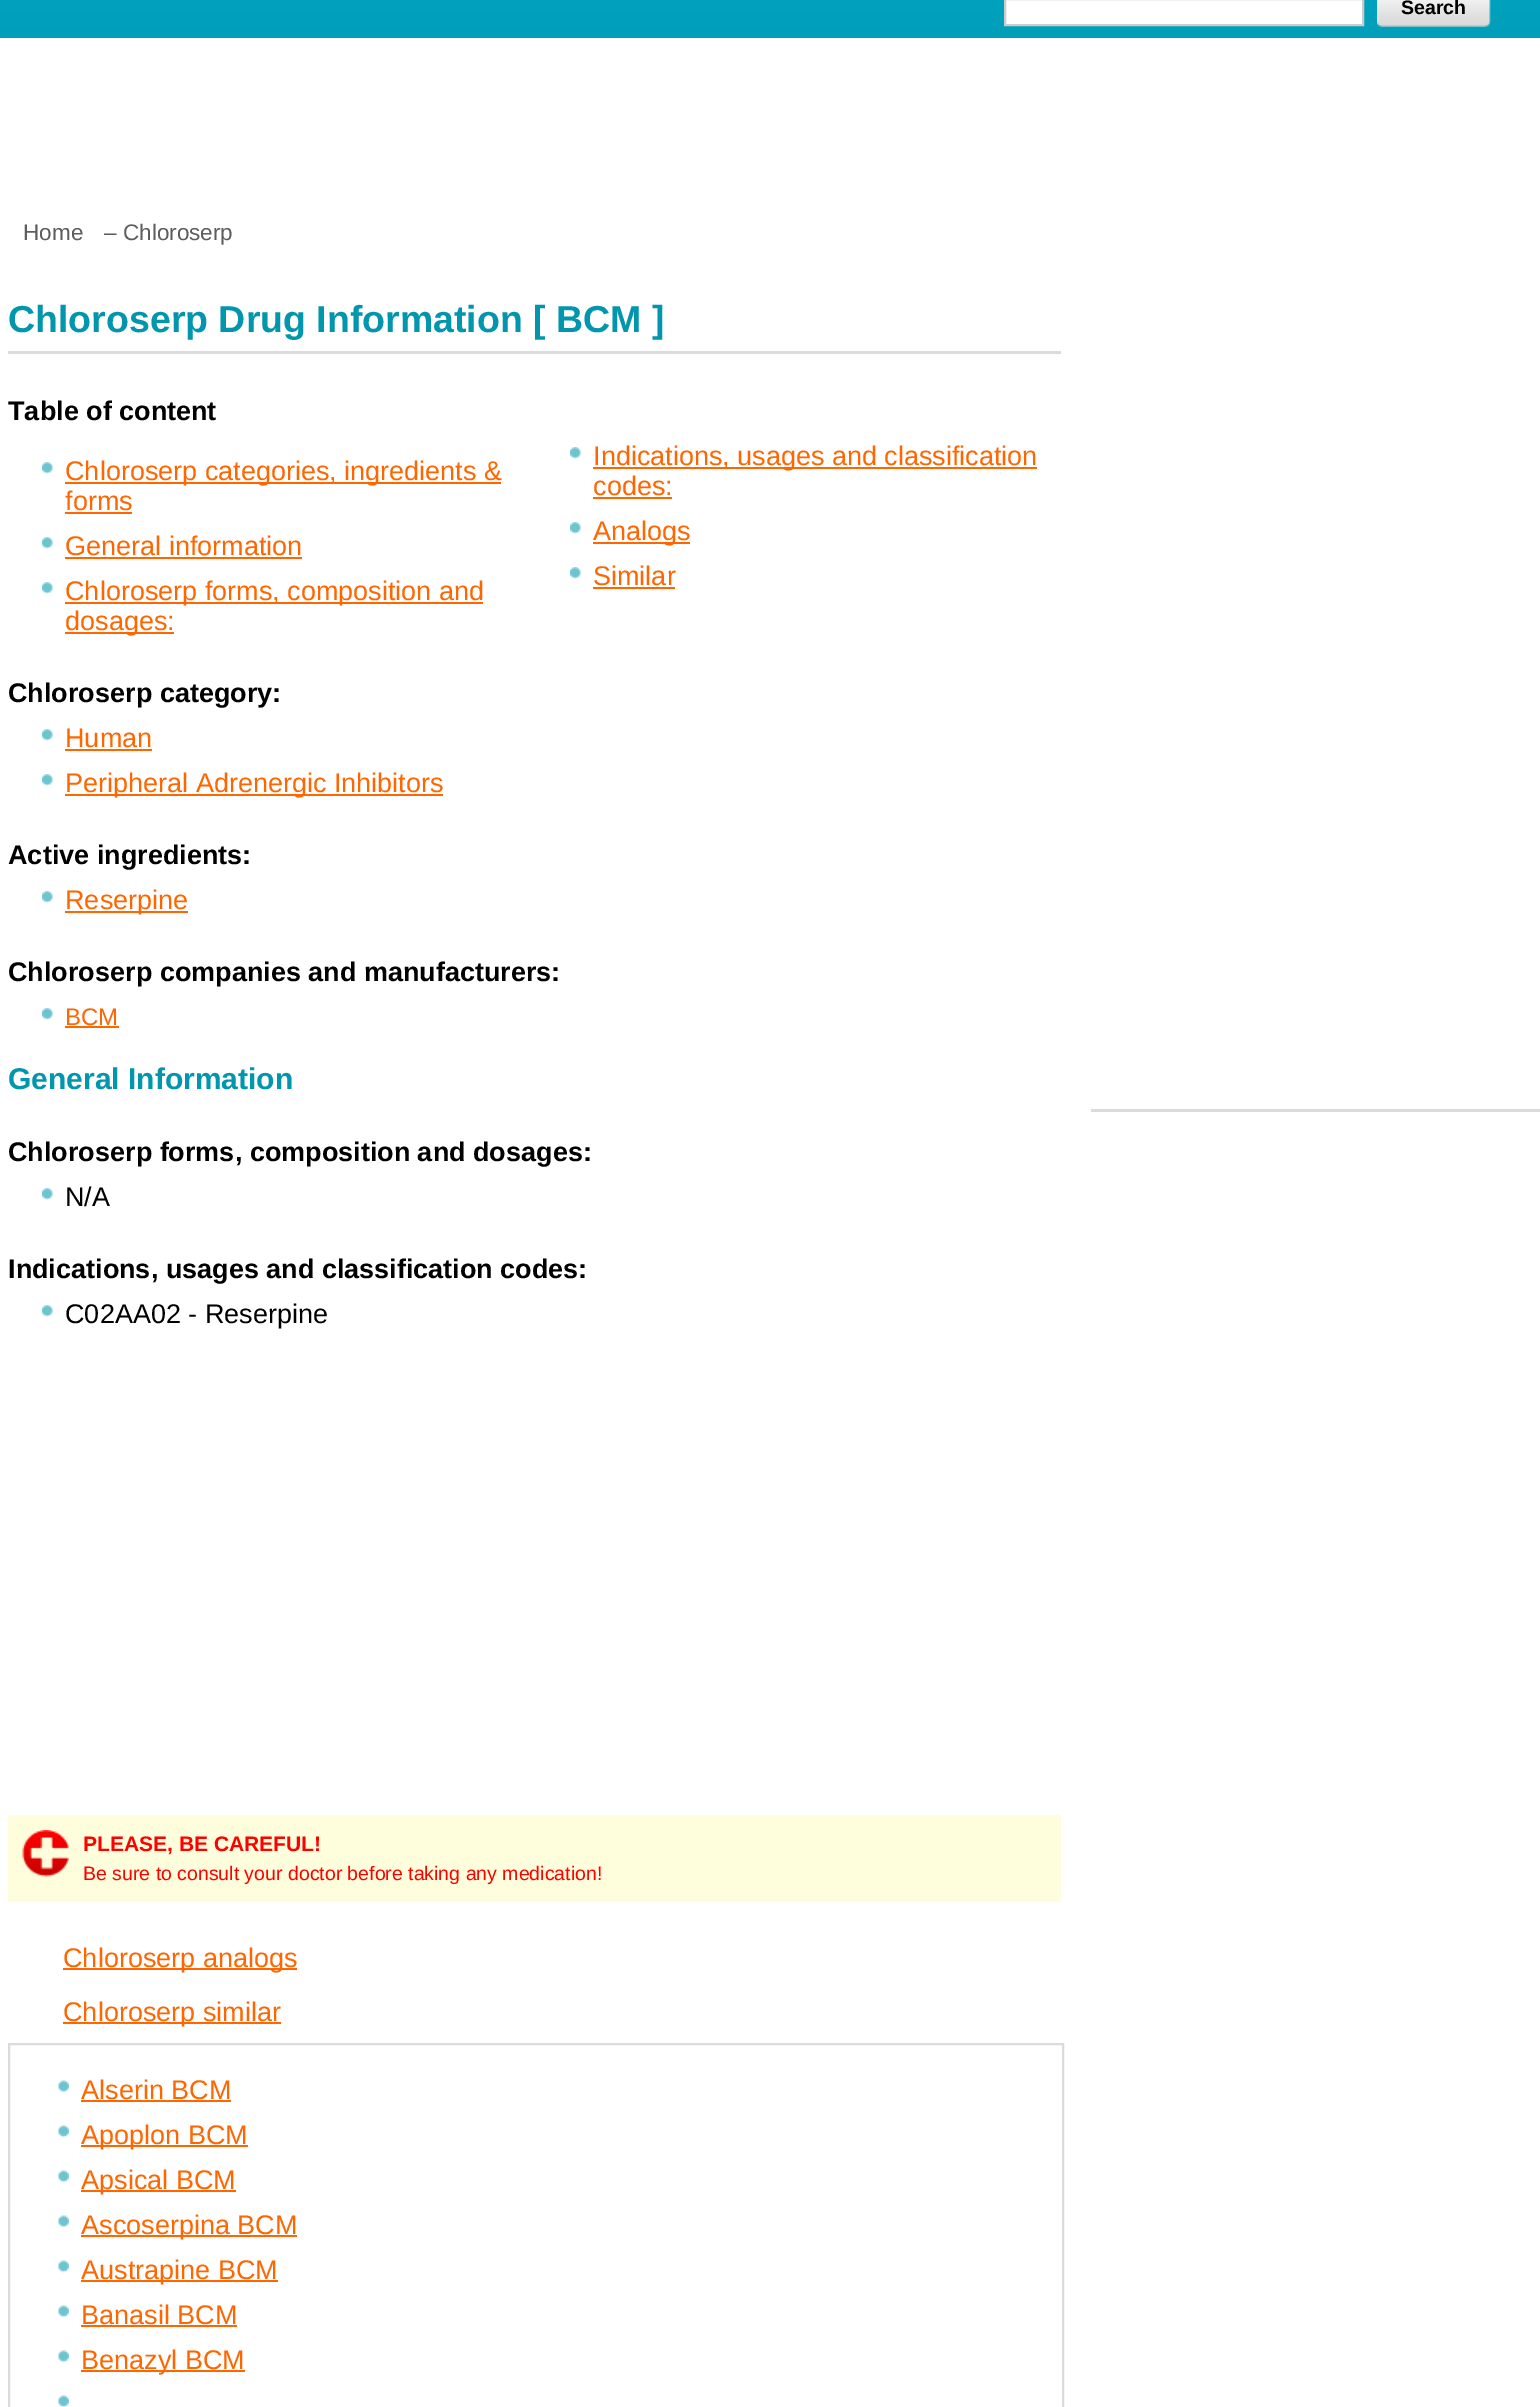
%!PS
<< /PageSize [1540 2407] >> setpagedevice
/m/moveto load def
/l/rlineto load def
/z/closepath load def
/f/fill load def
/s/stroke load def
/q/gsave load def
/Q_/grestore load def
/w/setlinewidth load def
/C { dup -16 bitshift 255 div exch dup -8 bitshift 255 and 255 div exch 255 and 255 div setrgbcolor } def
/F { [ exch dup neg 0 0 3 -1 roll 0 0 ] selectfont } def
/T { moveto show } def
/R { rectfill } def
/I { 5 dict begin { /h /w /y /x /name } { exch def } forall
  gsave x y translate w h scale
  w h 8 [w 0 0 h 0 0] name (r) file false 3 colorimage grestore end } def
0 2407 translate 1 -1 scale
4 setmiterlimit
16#FFFFFF C
0 0 1540 2407 R
q 0 0 m 1540 0 l 0 38 l -1540 0 l z clip newpath
<< /ShadingType 2 /ColorSpace /DeviceRGB /Coords [770 -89 770 38] /Extend [true true] /Function << /FunctionType 2 /Domain [0 1] /C0 [0 .675 .792] /C1 [0 .62 .725] /N 1 >> >> shfill Q_
1005 -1 m 358 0 l 0 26 l -358 0 l z q f Q_
16#CCCCCC C
2 w
s
(1.rgb) 1377 0 107 27 I
(2.rgb) 1484 0 7 27 I
/LiberationSans-Bold 19.5 F
16#000000 C
(Search) 1401 14 T
/LiberationSans-Regular 22.5 F
16#5E5D5D C
(Home) 23 240 T
(– Chloroserp) 104 240 T
/LiberationSans-Bold 37.5 F
16#0195AE C
(Chloroserp Drug Information [ BCM ]) 8 332 T
16#DBDBDB C
8 351 1053 3 R
/LiberationSans-Bold 27 F
16#000000 C
(Table of content) 8 420 T
(3.rgb) 42 462 11 12 I
16#FF6600 C
65 482 436 2 R
/LiberationSans-Regular 27 F
(Chloroserp categories, ingredients &) 65 480 T
(forms) 65 510 T
65 512 67 2 R
(4.rgb) 570 447 11 12 I
593 467 444 2 R
(Indications, usages and classification) 593 465 T
(codes:) 593 495 T
593 497 79 2 R
(3.rgb) 42 537 11 12 I
(General information) 65 555 T
65 557 237 2 R
(4.rgb) 570 522 11 12 I
593 542 97 2 R
(Analogs) 593 540 T
(4.rgb) 570 567 11 12 I
(Similar) 593 585 T
593 587 82 2 R
(3.rgb) 42 582 11 12 I
65 602 418 2 R
(Chloroserp forms, composition and) 65 600 T
65 632 109 2 R
(dosages:) 65 630 T
/LiberationSans-Bold 27 F
16#000000 C
(Chloroserp category:) 8 702 T
(3.rgb) 42 729 11 12 I
/LiberationSans-Regular 27 F
16#FF6600 C
(Human) 65 747 T
65 749 87 2 R
(3.rgb) 42 774 11 12 I
65 794 378 2 R
(Peripheral Adrenergic Inhibitors) 65 792 T
/LiberationSans-Bold 27 F
16#000000 C
(Active ingredients:) 8 864 T
(3.rgb) 42 891 11 12 I
16#FF6600 C
65 911 123 2 R
/LiberationSans-Regular 27 F
(Reserpine) 65 909 T
/LiberationSans-Bold 27 F
16#000000 C
(Chloroserp companies and manufacturers:) 8 981 T
(3.rgb) 42 1008 11 12 I
/LiberationSans-Regular 24 F
16#FF6600 C
(BCM) 65 1025 T
65 1026 54 2 R
/LiberationSans-Bold 30 F
16#0195AE C
(General Information) 8 1089 T
/LiberationSans-Bold 27 F
16#000000 C
(Chloroserp forms, composition and dosages:) 8 1161 T
(3.rgb) 42 1188 11 12 I
/LiberationSans-Regular 27 F
(N/A) 65 1206 T
/LiberationSans-Bold 27 F
(Indications, usages and classification codes:) 8 1278 T
(3.rgb) 42 1305 11 12 I
/LiberationSans-Regular 27 F
(C02AA02 - Reserpine) 65 1323 T
16#FFFEDC C
8 1815 1053 87 R
(5.rgb) 22 1830 47 47 I
/LiberationSans-Bold 21 F
16#FF0000 C
(PLEASE, BE CAREFUL!) 83 1851 T
/LiberationSans-Regular 19.5 F
(Be sure to consult your doctor before taking any medication!) 83 1880 T
16#FF6600 C
63 1968 234 2 R
/LiberationSans-Regular 27 F
(Chloroserp analogs) 63 1967 T
63 2022 218 2 R
(Chloroserp similar) 63 2021 T
16#DBDBDB C
9 2044 1054 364 rectstroke
(6.rgb) 58 2080 11 13 I
16#FF6600 C
(Alserin BCM) 81 2099 T
81 2100 150 2 R
(6.rgb) 58 2125 11 13 I
81 2145 167 2 R
(Apoplon BCM) 81 2144 T
(6.rgb) 58 2170 11 13 I
81 2190 155 2 R
(Apsical BCM) 81 2189 T
(6.rgb) 58 2215 11 13 I
81 2235 216 2 R
(Ascoserpina BCM) 81 2234 T
(6.rgb) 58 2260 11 13 I
81 2280 197 2 R
(Austrapine BCM) 81 2279 T
(6.rgb) 58 2305 11 13 I
(Banasil BCM) 81 2324 T
81 2325 156 2 R
(6.rgb) 58 2350 11 13 I
81 2370 164 2 R
(Benazyl BCM) 81 2369 T
(7.rgb) 58 2395 11 12 I
16#DBDBDB C
1091 1109 449 3 R
showpage
